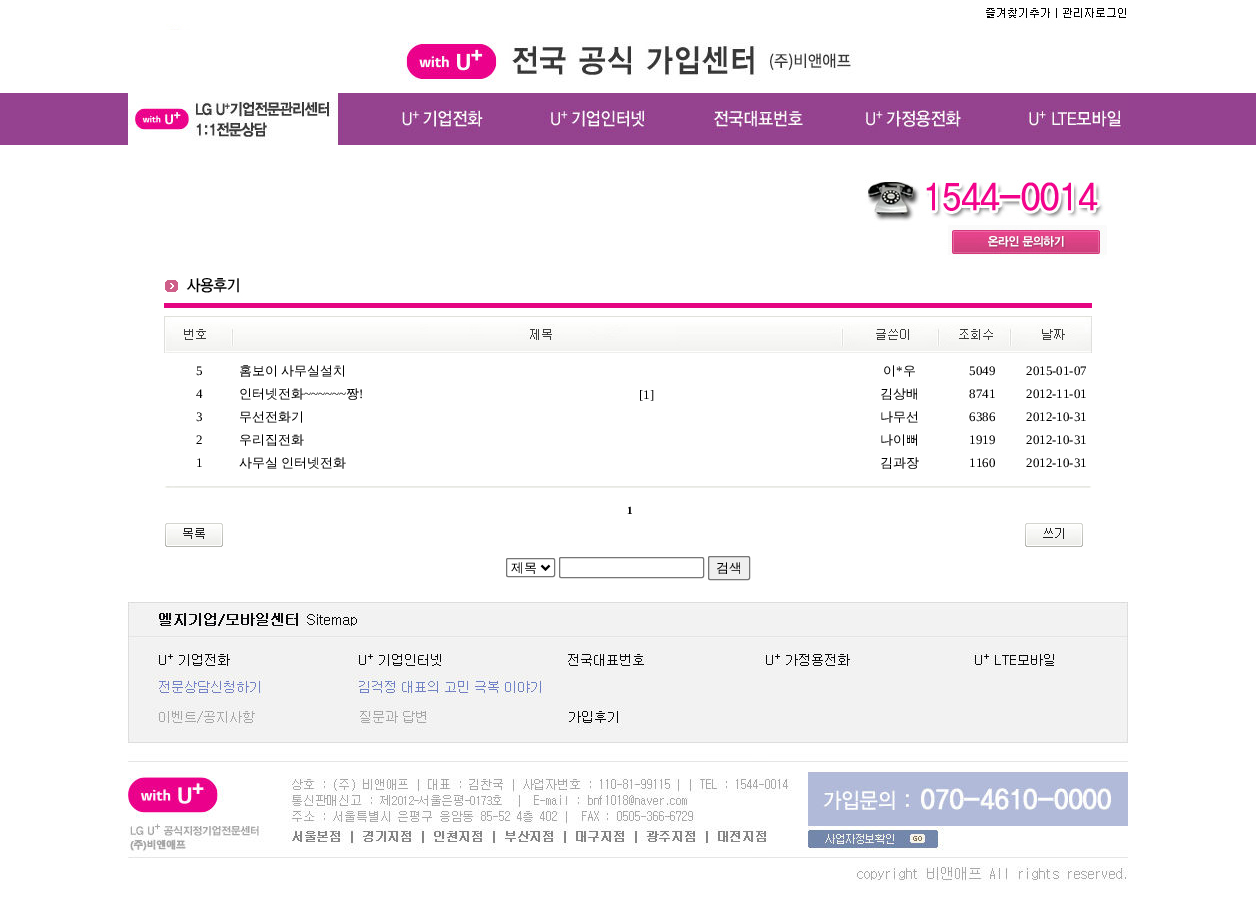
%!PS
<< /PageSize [1256 908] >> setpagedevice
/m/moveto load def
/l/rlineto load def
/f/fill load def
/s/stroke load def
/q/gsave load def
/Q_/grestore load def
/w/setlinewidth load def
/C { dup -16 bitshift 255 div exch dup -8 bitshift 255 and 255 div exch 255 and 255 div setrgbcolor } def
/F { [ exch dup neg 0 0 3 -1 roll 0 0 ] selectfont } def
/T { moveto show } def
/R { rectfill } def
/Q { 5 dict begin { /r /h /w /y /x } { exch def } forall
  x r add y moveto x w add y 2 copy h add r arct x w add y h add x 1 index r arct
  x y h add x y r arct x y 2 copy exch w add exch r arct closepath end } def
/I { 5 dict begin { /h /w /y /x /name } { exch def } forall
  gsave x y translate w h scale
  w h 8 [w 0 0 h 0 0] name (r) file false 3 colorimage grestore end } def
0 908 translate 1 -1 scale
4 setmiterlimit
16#FFFFFF C
0 0 1256 908 R
(1.rgb) 166 8 960 22 I
(2.rgb) 400 42 456 40 I
16#954290 C
0 93 1256 52 R
(3.rgb) 128 93 1000 52 I
(4.rgb) 865 179 242 80 I
(5.rgb) 164 278 928 30 I
(6.rgb) 164 316 928 37 I
/LiberationSerif-Regular 13 F
16#000000 C
(5) 196 375 T
/WenQuanYiZenHei-Medium 13 F
239 375 m -1 0 32 (홈보이 사무실설치) widthshow
(이) 883 375 T
/LiberationSerif-Regular 13 F
(*) 896 375 T
/WenQuanYiZenHei-Medium 13 F
(우) 903 375 T
/LiberationSerif-Regular 13 F
(5049) 969 375 T
(2015-01-07) 1026 375 T
(4) 196 398 T
/WenQuanYiZenHei-Medium 13 F
(인터넷전화) 239 398 T
/LiberationSerif-Regular 13 F
(~~~~~~) 304 398 T
/WenQuanYiZenHei-Medium 13 F
(짱) 346 398 T
/LiberationSerif-Regular 13 F
(!) 359 398 T
([1]) 639 399 T
/WenQuanYiZenHei-Medium 13 F
(김상배) 880 398 T
/LiberationSerif-Regular 13 F
(8741) 969 398 T
(2012-11-01) 1026 398 T
(3) 196 421 T
/WenQuanYiZenHei-Medium 13 F
(무선전화기) 239 421 T
(나무선) 880 421 T
/LiberationSerif-Regular 13 F
(6386) 969 421 T
(2012-10-31) 1026 421 T
(2) 196 444 T
/WenQuanYiZenHei-Medium 13 F
(우리집전화) 239 444 T
(나이뻐) 880 444 T
/LiberationSerif-Regular 13 F
(1919) 969 444 T
(2012-10-31) 1026 444 T
(1) 196 467 T
/WenQuanYiZenHei-Medium 13 F
239 467 m -1 0 32 (사무실 인터넷전화) widthshow
(김과장) 880 467 T
/LiberationSerif-Regular 13 F
(1160) 969 467 T
(2012-10-31) 1026 467 T
(7.rgb) 164 486 928 2 I
/LiberationSerif-Bold 11 F
(1) 627 514 T
(8.rgb) 165 523 58 24 I
(9.rgb) 1025 523 58 24 I
16#767676 C
506.5 558.5 48 18 1.5 Q s
16#000000 C
2 w
541.5 565.5 m 4 4 l 4 -4 l s
/WenQuanYiZenHei-Medium 13 F
(제목) 511 572 T
16#767676 C
1 w
559.5 557.5 144 20 1.5 Q s
16#EFEFEF C
708.5 556.5 41 23 1.5 Q q f Q_
16#767676 C
s
16#000000 C
(검색) 716 572 T
(10.rgb) 128 602 1000 280 I
showpage
